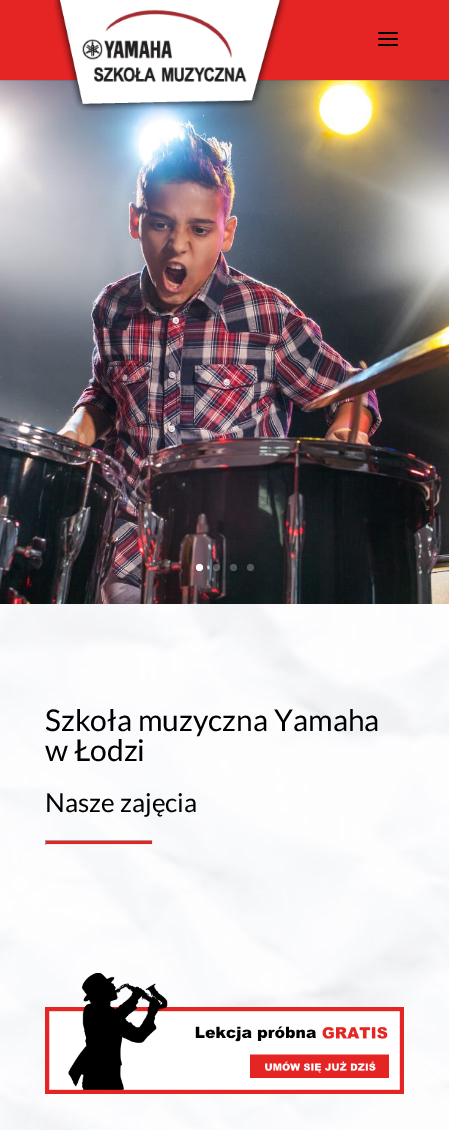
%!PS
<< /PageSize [449 1130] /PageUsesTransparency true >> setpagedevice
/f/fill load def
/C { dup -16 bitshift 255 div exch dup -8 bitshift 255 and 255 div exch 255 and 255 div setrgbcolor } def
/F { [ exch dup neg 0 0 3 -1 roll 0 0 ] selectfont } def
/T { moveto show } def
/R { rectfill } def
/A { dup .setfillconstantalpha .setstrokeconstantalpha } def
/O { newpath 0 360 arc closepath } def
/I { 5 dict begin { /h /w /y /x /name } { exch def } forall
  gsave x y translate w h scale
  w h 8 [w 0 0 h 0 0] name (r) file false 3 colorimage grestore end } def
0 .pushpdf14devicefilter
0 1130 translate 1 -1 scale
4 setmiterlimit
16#FFFFFF C
0 0 449 1130 R
(1.rgb) 0 604 449 526 I
(4.rgb) 0 80 449 524 I
0.1 A
16#000000 C
0 80 449 1 R
1 A
16#E52424 C
0 0 449 80 R
(2.rgb) 53 0 234 111 I
(3.rgb) 378 32 20 14 I
16#FFFFFF C
199.5 567.5 3.5 O f
0.25 A
216.5 567.5 3.5 O f
233.5 567.5 3.5 O f
250.5 567.5 3.5 O f
/Lato-Regular 30 F
1 A
16#000000 C
(Szkoła muzyczna Yamaha) 45 731 T
(w Łodzi) 45 761 T
/Lato-Regular 26 F
(Nasze zajęcia) 45 812 T
16#E52424 C
45 841 108 3 R
16#9F9F9F C
45 840 108 1 R
16#EEEEEE C
152 840 1 5 R
45 844 108 1 R
16#9F9F9F C
45 840 1 5 R
(5.rgb) 45 973 359 121 I
.poppdf14devicefilter showpage
